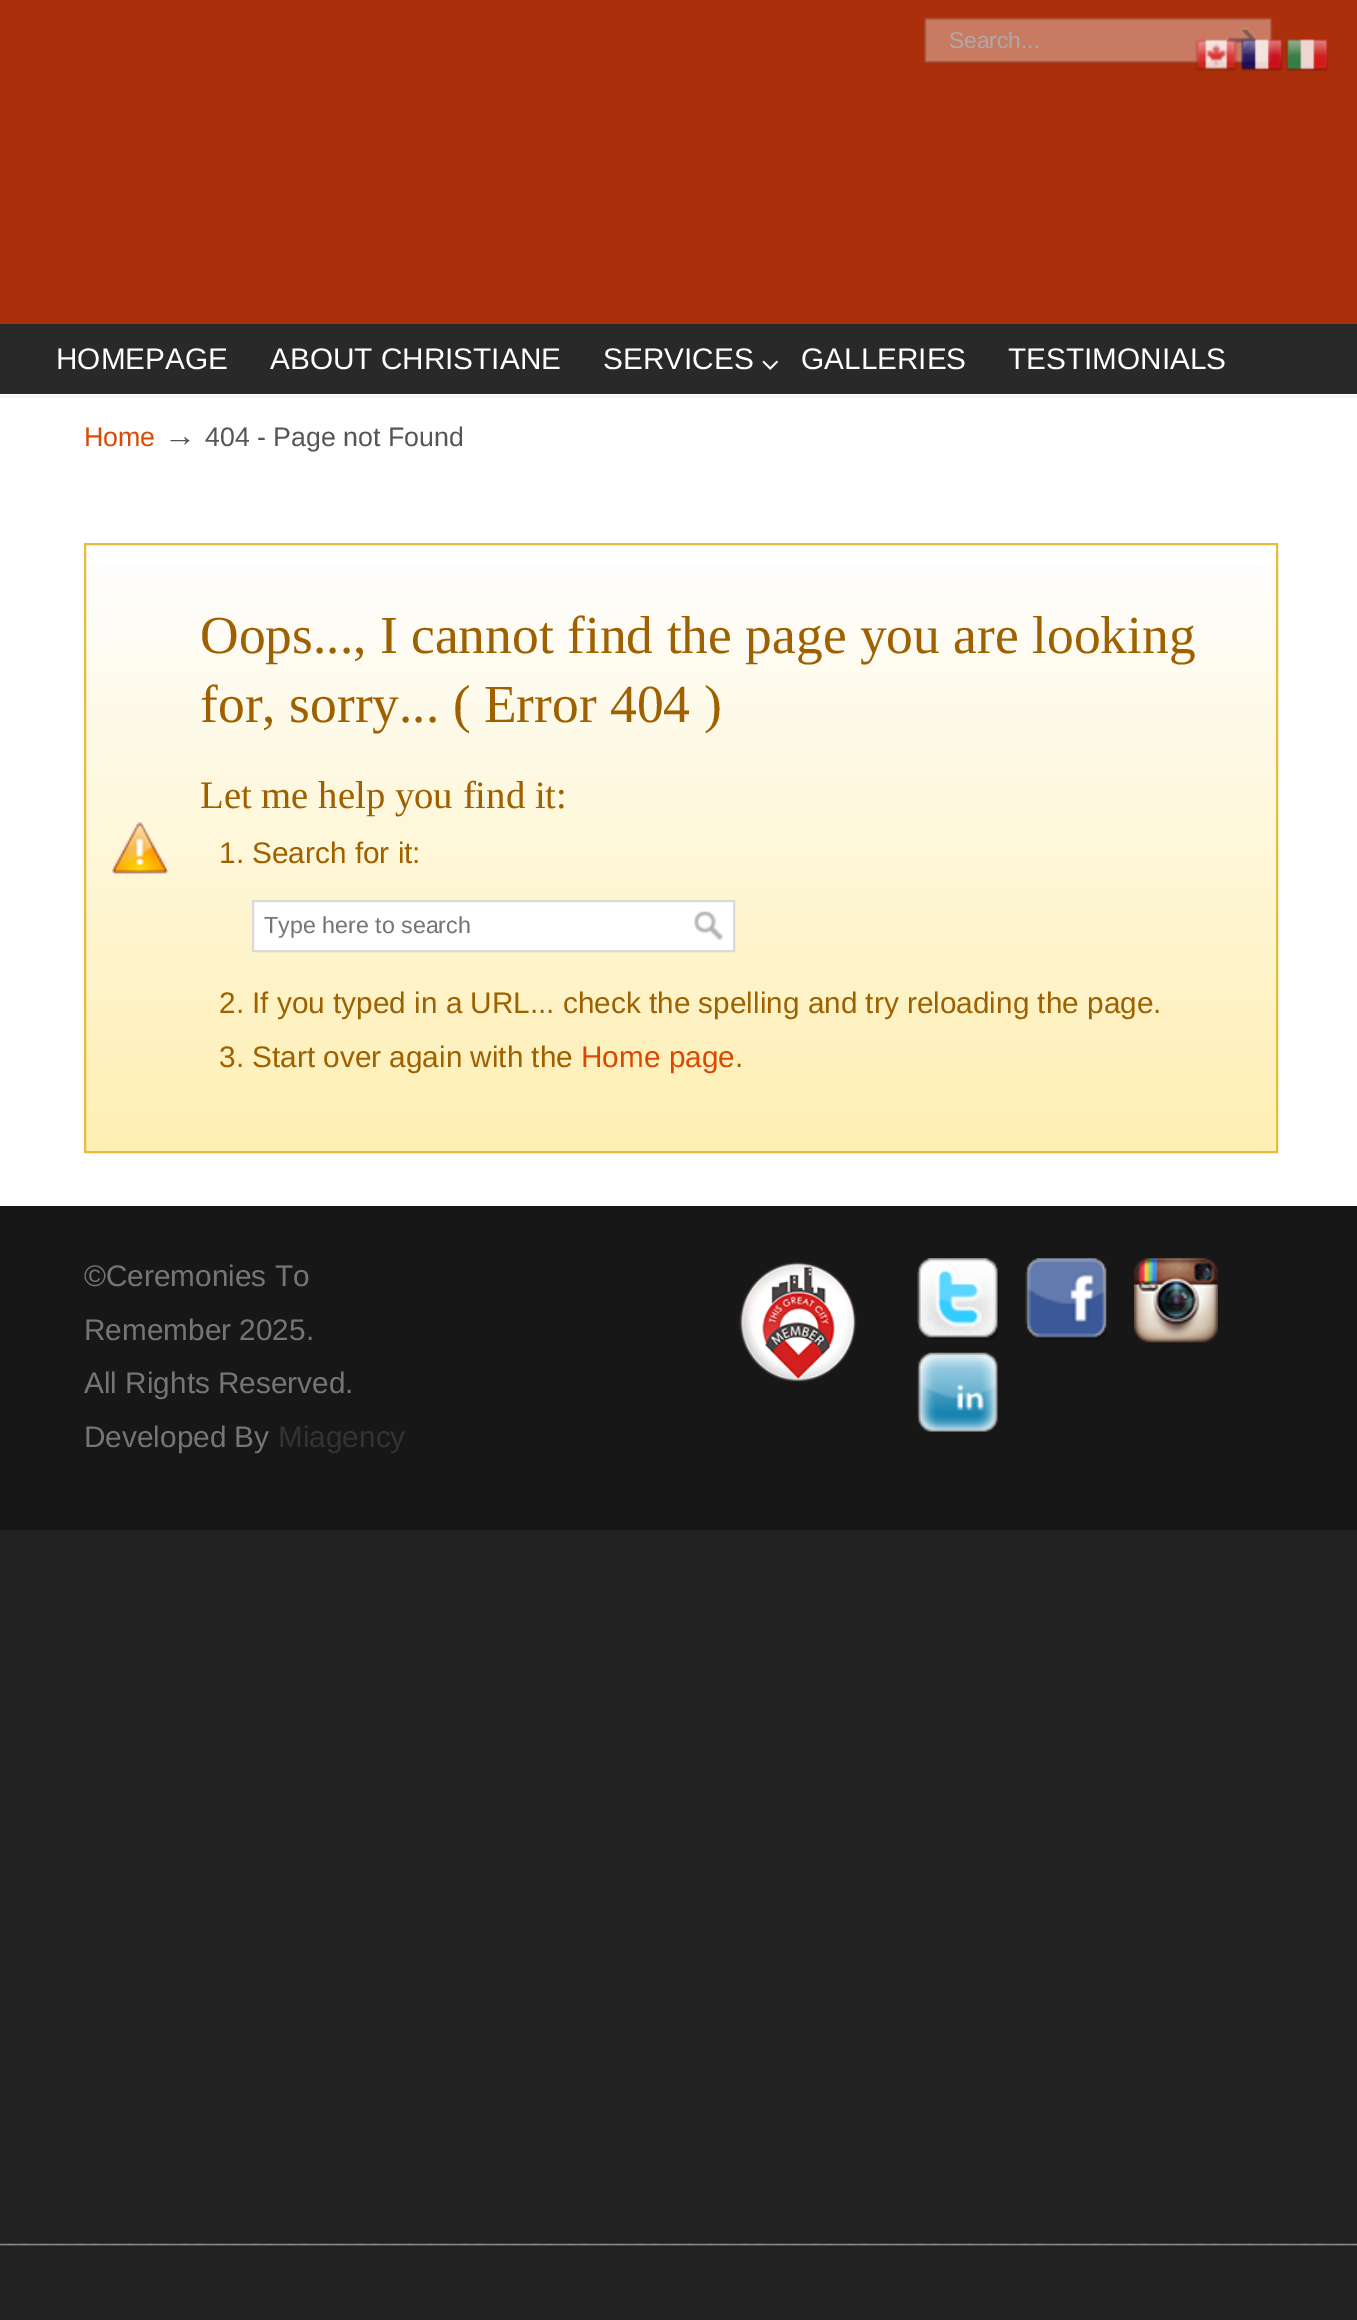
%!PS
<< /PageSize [1357 2320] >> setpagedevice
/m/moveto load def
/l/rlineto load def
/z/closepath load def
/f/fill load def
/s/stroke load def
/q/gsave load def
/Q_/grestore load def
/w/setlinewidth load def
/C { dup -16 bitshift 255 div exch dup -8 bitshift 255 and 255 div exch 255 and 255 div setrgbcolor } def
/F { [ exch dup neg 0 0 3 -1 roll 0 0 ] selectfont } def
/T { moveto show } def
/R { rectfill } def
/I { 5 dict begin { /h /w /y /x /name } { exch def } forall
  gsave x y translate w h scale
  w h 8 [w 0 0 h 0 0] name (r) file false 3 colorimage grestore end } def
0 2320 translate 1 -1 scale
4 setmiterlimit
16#212121 C
0 0 1357 2320 R
16#AB2F0B C
0 0 1357 324 R
(1.rgb) 924 17 279 46 I
/LiberationSans-Regular 22.75 F
16#AAAAAA C
(Search...) 949 48 T
(2.rgb) 1202 17 71 46 I
16#292929 C
0 324 1357 70 R
/LiberationSans-Regular 29.75 F
16#FFFFFF C
(HOMEPAGE) 56 369 T
(ABOUT CHRISTIANE) 270 369 T
(SERVICES) 603 369 T
(3.rgb) 762 360 16 10 I
(GALLERIES) 801 369 T
(TESTIMONIALS) 1008 369 T
0 394 1357 812 R
(4.rgb) 0 394 1357 4 I
/LiberationSans-Regular 26.75 F
16#DB4900 C
(Home) 84 446 T
/LiberationSans-Regular 32 F
16#555555 C
(→) 164 446 T
/LiberationSans-Regular 26.75 F
(404 - Page not Found) 205 446 T
q 86 564 m 1190 0 l 0 587 l -1190 0 l z clip newpath
<< /ShadingType 2 /ColorSpace /DeviceRGB /Coords [681 544 681 1152] /Extend [true true] /Function << /FunctionType 2 /Domain [0 1] /C0 [1 1 1] /C1 [.996 .937 .702] /N 1 >> >> shfill Q_
16#E5BC3B C
2 w
85 544 1192 608 rectstroke
/LiberationSerif-Regular 53.5 F
16#9F6000 C
(Oops..., I cannot find the page you are looking) 200 653 T
(for, sorry... \( Error 404 \)) 200 722 T
(5.rgb) 112 822 56 52 I
/LiberationSerif-Regular 38.75 F
(Let me help you find it:) 200 808 T
/LiberationSans-Regular 29.75 F
(1. Search for it:) 219 863 T
16#FFFFFF C
253 901 m 481 0 l 0 50 l -481 0 l z q f Q_
16#DDD9D9 C
s
/LiberationSans-Regular 23.25 F
16#757575 C
(Type here to search) 264 933 T
(6.rgb) 694 911 30 29 I
/LiberationSans-Regular 29.75 F
16#9F6000 C
(2. If you typed in a URL... check the spelling and try reloading the page.) 219 1013 T
(3. Start over again with the) 219 1067 T
16#DB4900 C
(Home page) 581 1067 T
16#9F6000 C
(.) 735 1067 T
16#171717 C
0 1206 1357 324 R
16#757575 C
(©Ceremonies To) 84 1286 T
(Remember 2025.) 84 1340 T
(All Rights Reserved.) 84 1393 T
(Developed By) 84 1447 T
16#333333 C
(Miagency) 278 1447 T
(7.rgb) 738 1262 119 120 I
(8.rgb) 917 1258 82 82 I
(9.rgb) 1025 1258 82 82 I
(10.rgb) 1134 1258 84 85 I
(11.rgb) 917 1352 81 80 I
(12.rgb) 1195 39 43 33 I
(13.rgb) 1240 39 43 33 I
(14.rgb) 1286 39 43 33 I
(15.rgb) 0 2243 1357 3 I
showpage
